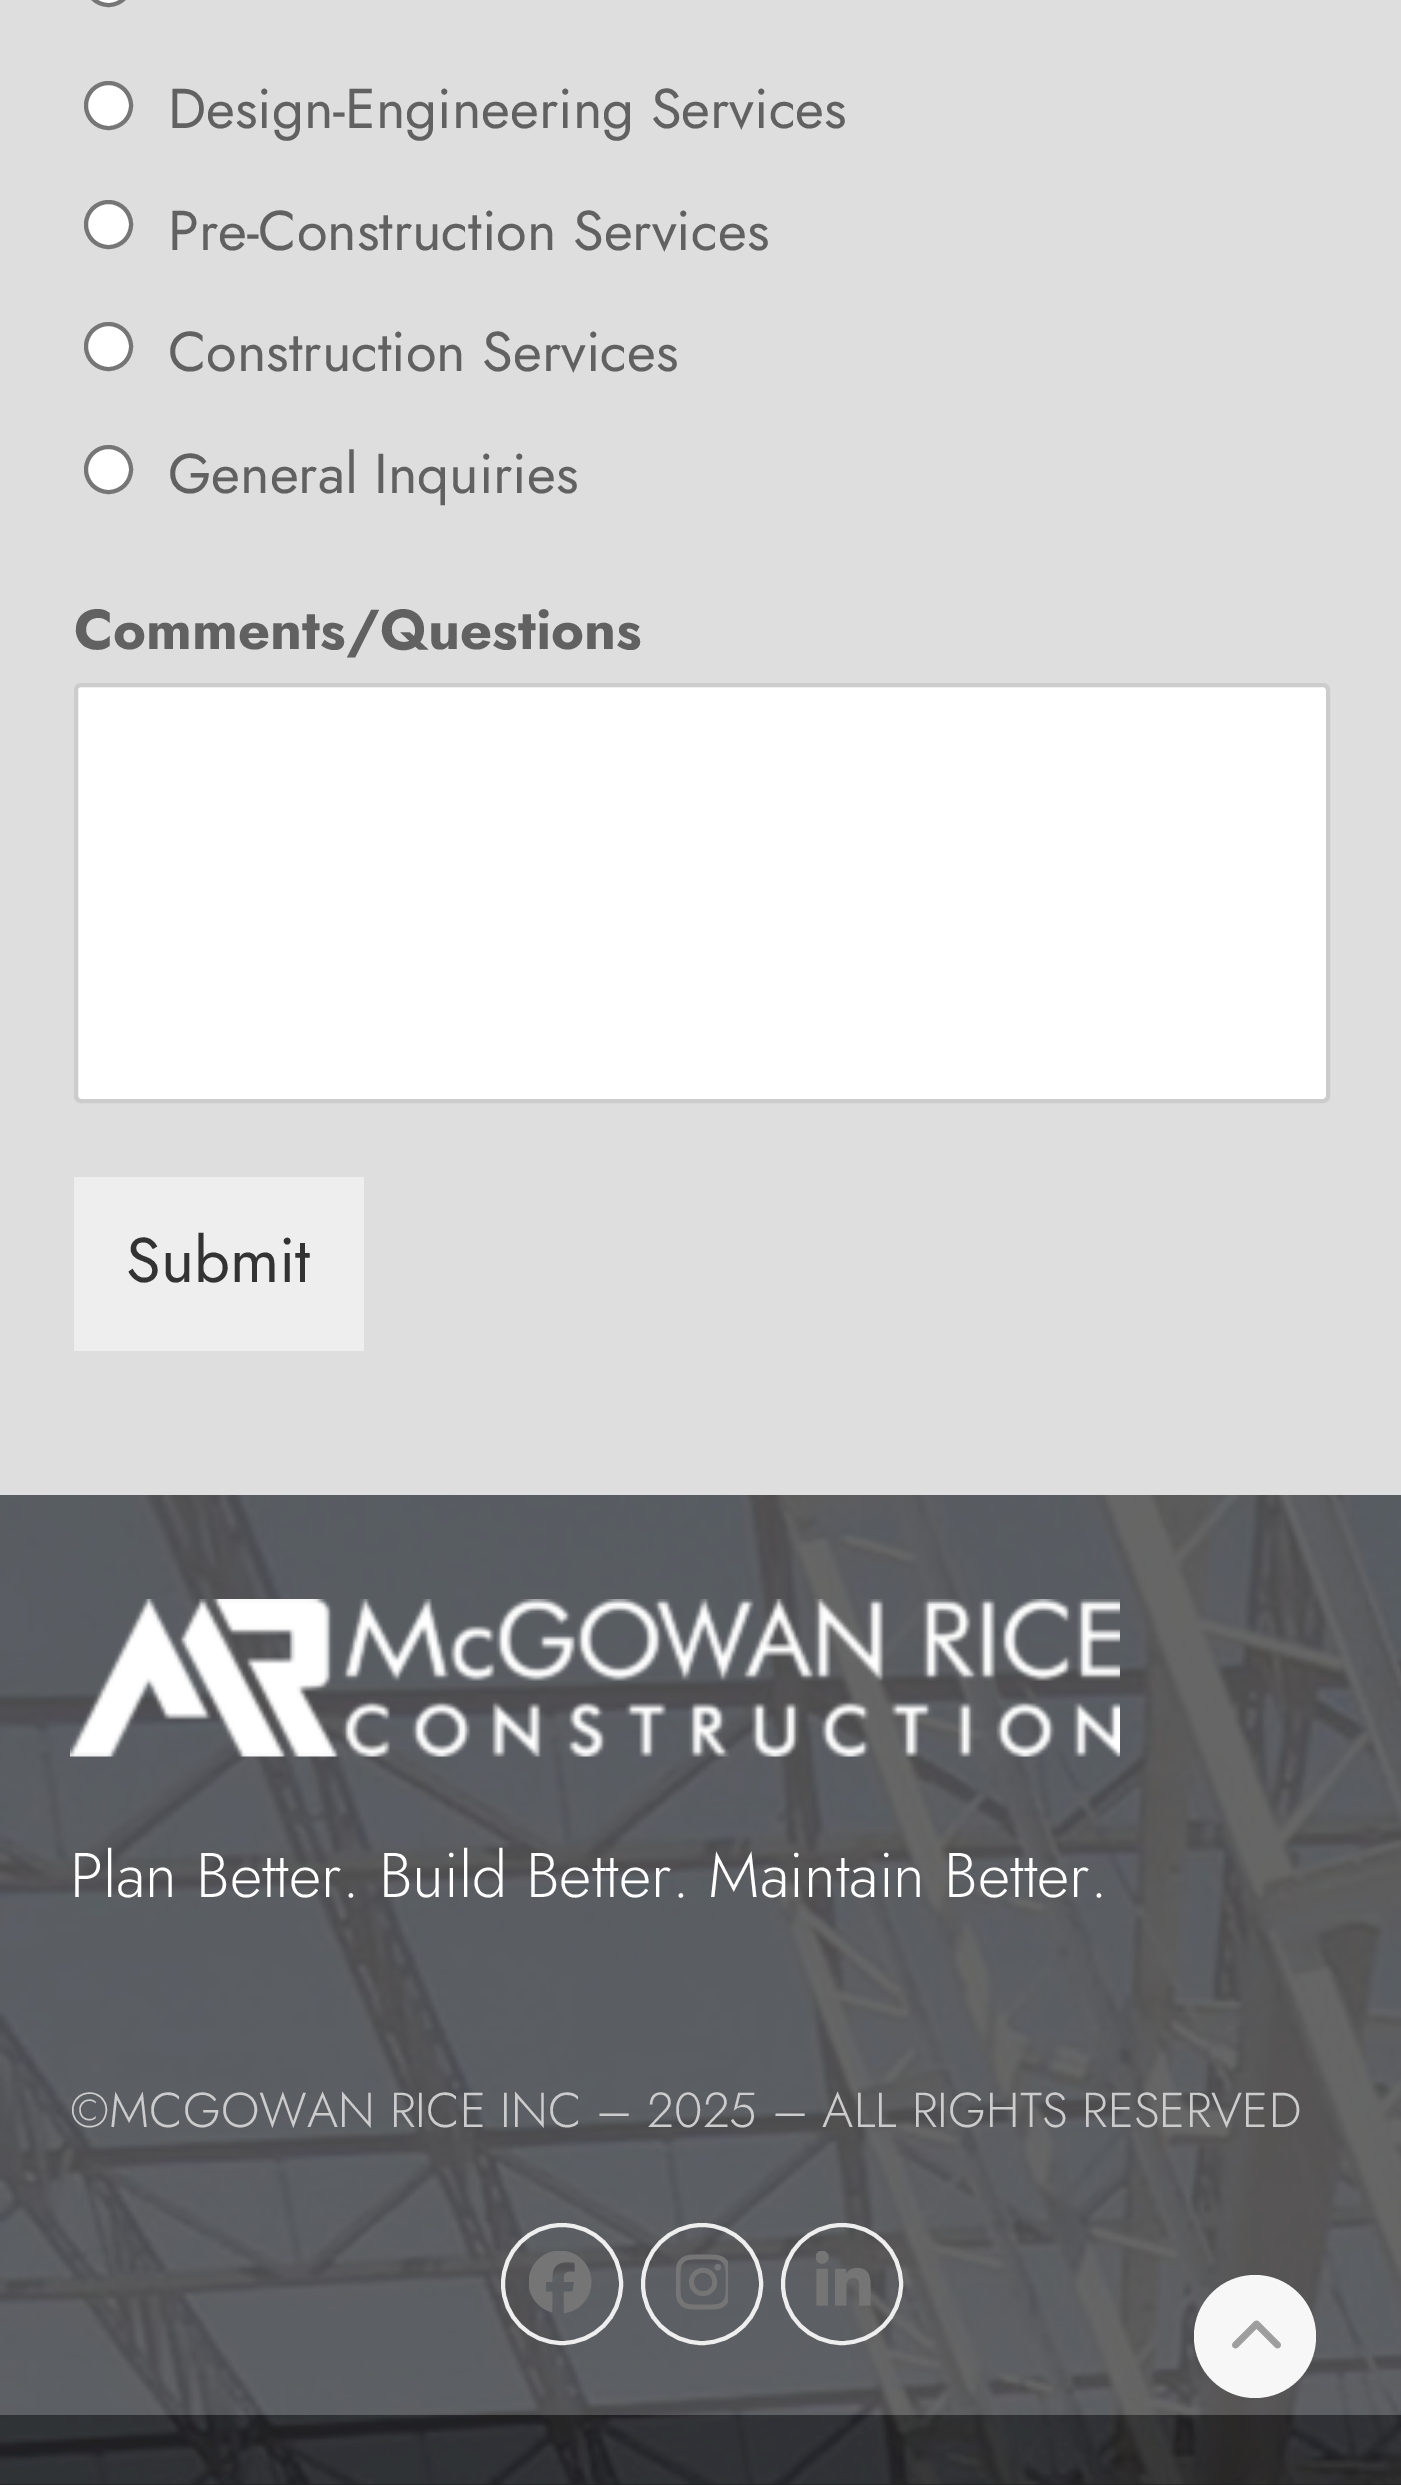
%!PS
<< /PageSize [1401 2485] >> setpagedevice
/f/fill load def
/s/stroke load def
/q/gsave load def
/Q_/grestore load def
/w/setlinewidth load def
/C { dup -16 bitshift 255 div exch dup -8 bitshift 255 and 255 div exch 255 and 255 div setrgbcolor } def
/F { [ exch dup neg 0 0 3 -1 roll 0 0 ] selectfont } def
/T { moveto show } def
/R { rectfill } def
/O { newpath 0 360 arc closepath } def
/Q { 5 dict begin { /r /h /w /y /x } { exch def } forall
  x r add y moveto x w add y 2 copy h add r arct x w add y h add x 1 index r arct
  x y h add x y r arct x y 2 copy exch w add exch r arct closepath end } def
/I { 5 dict begin { /h /w /y /x /name } { exch def } forall
  gsave x y translate w h scale
  w h 8 [w 0 0 h 0 0] name (r) file false 3 colorimage grestore end } def
0 2485 translate 1 -1 scale
4 setmiterlimit
16#555555 C
0 0 1401 2485 R
16#DEDEDE C
0 0 1401 1495 R
16#FFFFFF C
86 -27 45 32 22.5 Q q f Q_
16#767676 C
4 w
s
16#FFFFFF C
108.5 105.5 22.5 O q f Q_
16#767676 C
s
/Jost-Regular 56 F
16#616161 C
(Design-Engineering Services) 168 128 T
16#FFFFFF C
108.5 224.5 22.5 O q f Q_
16#767676 C
s
16#616161 C
(Pre-Construction Services) 168 250 T
16#FFFFFF C
108.5 346.5 22.5 O q f Q_
16#767676 C
s
16#616161 C
(Construction Services) 168 371 T
16#FFFFFF C
108.5 469.5 22.5 O q f Q_
16#767676 C
s
16#616161 C
(General Inquiries) 168 493 T
/Jost-Bold 56 F
(Comments/Questions) 74 649 T
16#FFFFFF C
76 685 1252 416 5 Q q f Q_
16#CCCCCC C
s
16#EEEEEE C
74 1177 290 174 R
/Jost-Regular 63 F
16#333333 C
(Submit) 126 1282 T
16#222222 C
0 2415 1401 70 R
(1.rgb) 0 1495 1401 990 I
(2.rgb) 70 1599 1050 158 I
/Jost-Light 63 F
16#FFFFFF C
(Plan Better. Build Better. Maintain Better.) 70 1897 T
/Jost-Light 49 F
16#CCCCCC C
(©MCGOWAN RICE INC – 2025 – ALL RIGHTS RESERVED) 70 2127 T
16#EEEEEE C
562 2284 59 O s
(3.rgb) 529 2251 63 62 I
702 2284 59 O s
(4.rgb) 676 2254 52 56 I
842 2284 59 O s
(5.rgb) 816 2251 55 55 I
16#F7F7F7 C
1194 2275 122 123 61 Q f
(6.rgb) 1232 2320 49 29 I
showpage
